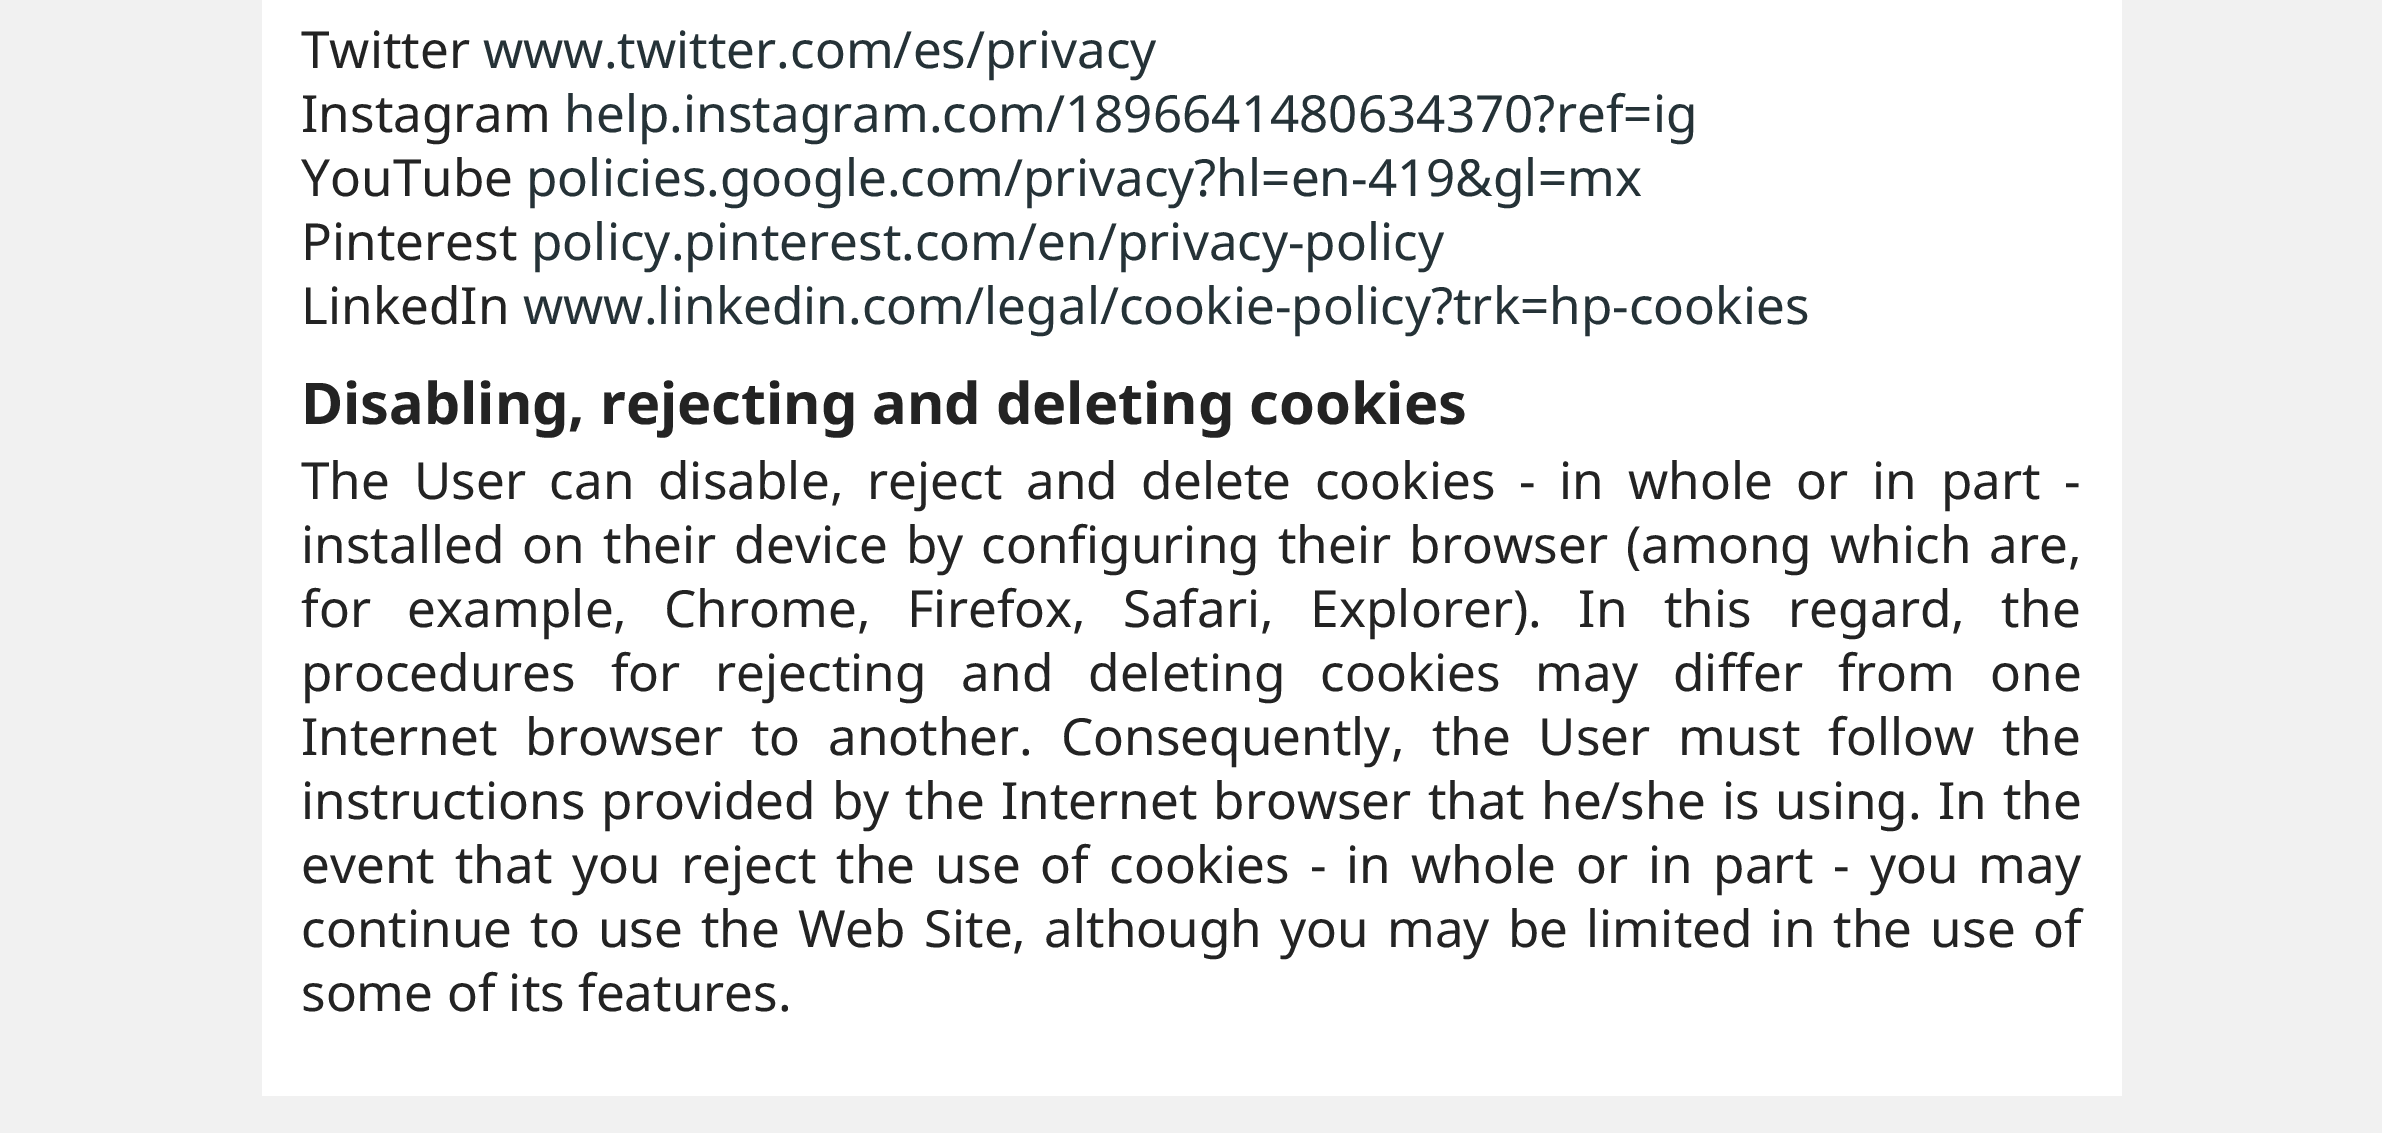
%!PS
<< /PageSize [2382 1133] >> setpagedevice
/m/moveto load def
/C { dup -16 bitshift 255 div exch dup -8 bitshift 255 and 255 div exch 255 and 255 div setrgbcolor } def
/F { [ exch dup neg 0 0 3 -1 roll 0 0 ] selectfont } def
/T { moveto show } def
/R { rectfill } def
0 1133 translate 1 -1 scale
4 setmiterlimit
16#F1F1F1 C
0 0 2382 1133 R
16#FFFFFF C
262 0 1860 1096 R
/NotoSans-Regular 51.2 F
16#232323 C
(Twitter) 301 68 T
16#253237 C
(www.twitter.com/es/privacy) 483 68 T
16#232323 C
(Instagram) 301 132 T
16#253237 C
(help.instagram.com/1896641480634370?ref=ig) 564 132 T
16#232323 C
(YouTube) 301 196 T
16#253237 C
(policies.google.com/privacy?hl=en-419&gl=mx) 526 196 T
16#232323 C
(Pinterest) 301 260 T
16#253237 C
(policy.pinterest.com/en/privacy-policy) 531 260 T
16#232323 C
(LinkedIn) 301 324 T
16#253237 C
(www.linkedin.com/legal/cookie-policy?trk=hp-cookies) 523 324 T
/NotoSans-Bold 57.6 F
16#232323 C
(Disabling, rejecting and deleting cookies) 301 424 T
/NotoSans-Regular 51.2 F
301 499 m 10.4 0 32 (The User can disable, reject and delete cookies - in whole or in part -) widthshow
301 563 m 4.75 0 32 (installed on their device by configuring their browser \(among which are,) widthshow
301 627 m 23.25 0 32 (for example, Chrome, Firefox, Safari, Explorer\). In this regard, the) widthshow
301 691 m 21.5 0 32 (procedures for rejecting and deleting cookies may differ from one) widthshow
301 755 m 14.25 0 32 (Internet browser to another. Consequently, the User must follow the) widthshow
301 819 m 2.75 0 32 (instructions provided by the Internet browser that he/she is using. In the) widthshow
301 883 m 6.75 0 32 (event that you reject the use of cookies - in whole or in part - you may) widthshow
301 947 m 4.75 0 32 (continue to use the Web Site, although you may be limited in the use of) widthshow
(some of its features.) 301 1011 T
showpage
